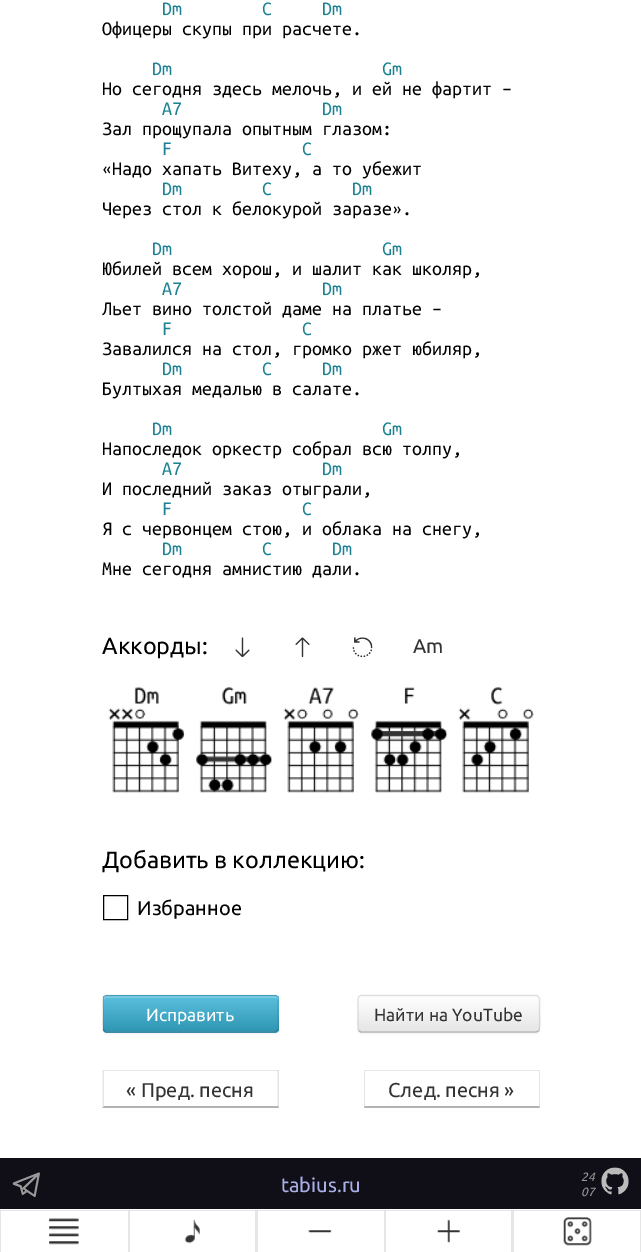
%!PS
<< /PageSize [641 1252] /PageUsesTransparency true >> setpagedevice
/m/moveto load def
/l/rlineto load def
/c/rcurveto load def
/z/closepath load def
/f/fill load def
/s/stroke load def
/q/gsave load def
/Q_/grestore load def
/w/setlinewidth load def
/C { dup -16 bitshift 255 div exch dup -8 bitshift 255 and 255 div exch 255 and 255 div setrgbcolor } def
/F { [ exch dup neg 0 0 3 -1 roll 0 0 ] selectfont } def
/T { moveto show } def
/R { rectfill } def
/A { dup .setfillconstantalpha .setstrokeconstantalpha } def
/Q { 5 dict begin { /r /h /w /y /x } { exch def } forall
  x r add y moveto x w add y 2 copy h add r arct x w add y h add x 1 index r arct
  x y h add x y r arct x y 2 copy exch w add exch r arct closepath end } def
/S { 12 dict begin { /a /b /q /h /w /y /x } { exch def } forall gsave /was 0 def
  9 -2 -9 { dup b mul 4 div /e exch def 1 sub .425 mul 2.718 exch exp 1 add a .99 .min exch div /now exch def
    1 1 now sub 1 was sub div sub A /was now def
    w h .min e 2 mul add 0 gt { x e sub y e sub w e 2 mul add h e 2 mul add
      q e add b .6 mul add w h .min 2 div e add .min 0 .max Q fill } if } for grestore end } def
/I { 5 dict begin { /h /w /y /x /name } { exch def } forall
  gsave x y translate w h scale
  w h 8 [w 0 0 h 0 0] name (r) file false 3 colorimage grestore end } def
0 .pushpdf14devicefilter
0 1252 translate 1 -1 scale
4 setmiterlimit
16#FFFFFF C
0 0 641 1252 R
/UbuntuMono-Regular 20 F
16#1B8193 C
(Dm) 162 15 T
(C) 262 15 T
(Dm) 322 15 T
16#000000 C
(Офицеры скупы при расчете.) 102 35 T
16#1B8193 C
(Dm) 152 75 T
(Gm) 382 75 T
16#000000 C
(Но сегодня здесь мелочь, и ей не фартит –) 102 95 T
16#1B8193 C
(A7) 162 115 T
(Dm) 322 115 T
16#000000 C
(Зал прощупала опытным глазом:) 102 135 T
16#1B8193 C
(F) 162 155 T
(C) 302 155 T
16#000000 C
(«Надо хапать Витеху, а то убежит) 102 175 T
16#1B8193 C
(Dm) 162 195 T
(C) 262 195 T
(Dm) 352 195 T
16#000000 C
(Через стол к белокурой заразе».) 102 215 T
16#1B8193 C
(Dm) 152 255 T
(Gm) 382 255 T
16#000000 C
(Юбилей всем хорош, и шалит как школяр,) 102 275 T
16#1B8193 C
(A7) 162 295 T
(Dm) 322 295 T
16#000000 C
(Льет вино толстой даме на платье –) 102 315 T
16#1B8193 C
(F) 162 335 T
(C) 302 335 T
16#000000 C
(Завалился на стол, громко ржет юбиляр,) 102 355 T
16#1B8193 C
(Dm) 162 375 T
(C) 262 375 T
(Dm) 322 375 T
16#000000 C
(Бултыхая медалью в салате.) 102 395 T
16#1B8193 C
(Dm) 152 435 T
(Gm) 382 435 T
16#000000 C
(Напоследок оркестр собрал всю толпу,) 102 455 T
16#1B8193 C
(A7) 162 475 T
(Dm) 322 475 T
16#000000 C
(И последний заказ отыграли,) 102 495 T
16#1B8193 C
(F) 162 515 T
(C) 302 515 T
16#000000 C
(Я с червонцем стою, и облака на снегу,) 102 535 T
16#1B8193 C
(Dm) 162 555 T
(C) 262 555 T
(Dm) 332 555 T
16#000000 C
(Мне сегодня амнистию дали.) 102 575 T
/Ubuntu-Regular 23.4 F
(Аккорды:) 102 654 T
(1.rgb) 235 637 15 21 I
(2.rgb) 295 637 15 21 I
(3.rgb) 352 637 21 21 I
/Ubuntu-Regular 20 F
16#333333 C
(Am) 413 653 T
(4.rgb) 108 687 77 106 I
(5.rgb) 196 687 77 106 I
(6.rgb) 283 687 76 106 I
(7.rgb) 371 687 77 106 I
(8.rgb) 458 687 76 106 I
/Ubuntu-Regular 23.4 F
16#000000 C
(Добавить в коллекцию:) 102 868 T
103.5 895.5 24 24 rectstroke
/Ubuntu-Regular 20 F
(Избранное) 137 915 T
103 996 176 38 4 1 .05 S
16#49AFCD C
103 995 176 38 4 Q f
q
103 995 176 38 4 Q clip newpath
q 103 996 m 176 0 l 0 35 l -176 0 l z clip newpath
<< /ShadingType 2 /ColorSpace /DeviceRGB /Coords [191 996 191 1031] /Extend [true true] /Function << /FunctionType 2 /Domain [0 1] /C0 [.357 .753 .871] /C1 [.184 .588 .706] /N 1 >> >> shfill Q_
Q_
16#7BCBE3 C
106 998 m 169 0 l 1 0 3 1 3 2 c 0 -2 l 0 -1 -1 -2 -2 -2 c -170 0 l -1 0 -2 1 -2 2 c 0 2 l 0 -1 1 -2 2 -2 c z f
0.25 A
16#000000 C
1.2 w
277 1031 m -2 1 l -169 0 l -2 -1 l s
0.1 A
104 1031 m -2 -2 -1 -14 -1 -17 c 0 -10 l 0 -2.5 -1 -8.5 3 -8.5 c 169 0 l 4 0 3 6 3 8.5 c 0 10 l 0 3 1.5 15 -1 17 c s
/Ubuntu-Regular 17.5 F
1 A
16#FFFFFF C
(Исправить) 146 1021 T
16#000000 C
358 996 182 38 4 1 .05 S
16#F5F5F5 C
358 995 182 38 4 Q f
q
358 995 182 38 4 Q clip newpath
q 358 996 m 182 0 l 0 35 l -182 0 l z clip newpath
<< /ShadingType 2 /ColorSpace /DeviceRGB /Coords [449 996 449 1031] /Extend [true true] /Function << /FunctionType 2 /Domain [0 1] /C0 [1 1 1] /C1 [.902 .902 .902] /N 1 >> >> shfill Q_
Q_
16#B3B3B3 C
538.5 1031 m -2.5 1 l -175 0 l -2 -1 l s
0.1 A
16#000000 C
359 1031 m -2 -2 -1 -14 -1 -17 c 0 -10 l 0 -2.5 -1 -8.5 3 -8.5 c 175 0 l 4.5 0 3.5 6 3.5 8.5 c 0 10 l 0 3 1 15 -1 17 c s
1 A
16#333333 C
(Найти на YouTube) 374 1021 T
16#E6E6E6 C
102 1070 m 177 0 l -1 1 l -174 0 l z f
0.1 A
16#000000 C
279 1070 m 0 37.5 l -1.5 -1.5 l 0 -35 l z f
1 A
16#B3B3B3 C
279 1108 m -177 0 l 2 -2 l 174 0 l z f
16#E6E6E6 C
102.5 1107.5 m 0 -37.5 l 1.5 1 l 0 35 l z f
/Ubuntu-Regular 20 F
16#333333 C
(« Пред. песня) 126 1097 T
16#E6E6E6 C
364 1070 m 176 0 l -1 1 l -174 0 l z f
0.1 A
16#000000 C
540 1070 m 0 37.5 l -1 -1.5 l 0 -35 l z f
1 A
16#B3B3B3 C
540 1108 m -176 0 l 1 -2 l 174 0 l z f
0.1 A
16#000000 C
364 1107.5 m 0 -37.5 l 1 1 l 0 35 l z f
1 A
16#333333 C
(След. песня ») 388 1097 T
16#100E17 C
0 1158 641 51 R
(9.rgb) 12 1172 28 25 I
16#A8AEE6 C
(tabius.ru) 281 1192 T
/Ubuntu-Italic 12 F
16#999999 C
(24) 581 1181 T
(07) 581 1196 T
(10.rgb) 601 1167 28 28 I
16#E6E6E6 C
0 1210 m 129 0 l -1 1 l -127 0 l z f
0.1 A
16#000000 C
129 1210 m 0 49 l -1 -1 l 0 -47 l z f
0 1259 m 0 -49 l 1 1 l 0 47 l z f
1 A
(11.rgb) 49 1218 30 27 I
16#E6E6E6 C
129 1210 m 127 0 l -1 1 l -125 0 l z f
0.1 A
16#000000 C
256 1210 m 0 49 l -1 -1 l 0 -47 l z f
129 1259 m 0 -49 l 1 1 l 0 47 l z f
1 A
(12.rgb) 184 1219 16 25 I
16#E6E6E6 C
256 1210 m 129 0 l -1 1 l -126 0 l z f
0.1 A
16#000000 C
385 1210 m 0 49 l -1 -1 l 0 -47 l z f
256 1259 m 0 -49 l 2 1 l 0 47 l z f
1 A
(13.rgb) 308 1230 24 3 I
16#E6E6E6 C
385 1210 m 127 0 l -1 1 l -125 0 l z f
0.1 A
16#000000 C
512 1210 m 0 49 l -1 -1 l 0 -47 l z f
385 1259 m 0 -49 l 1 1 l 0 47 l z f
1 A
(14.rgb) 437 1219 23 24 I
16#E6E6E6 C
512 1210 m 129 0 l -1 1 l -126 0 l z f
0.1 A
16#000000 C
641 1210 m 0 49 l -1 -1 l 0 -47 l z f
512 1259 m 0 -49 l 2 1 l 0 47 l z f
1 A
(15.rgb) 563 1217 29 29 I
.poppdf14devicefilter showpage
